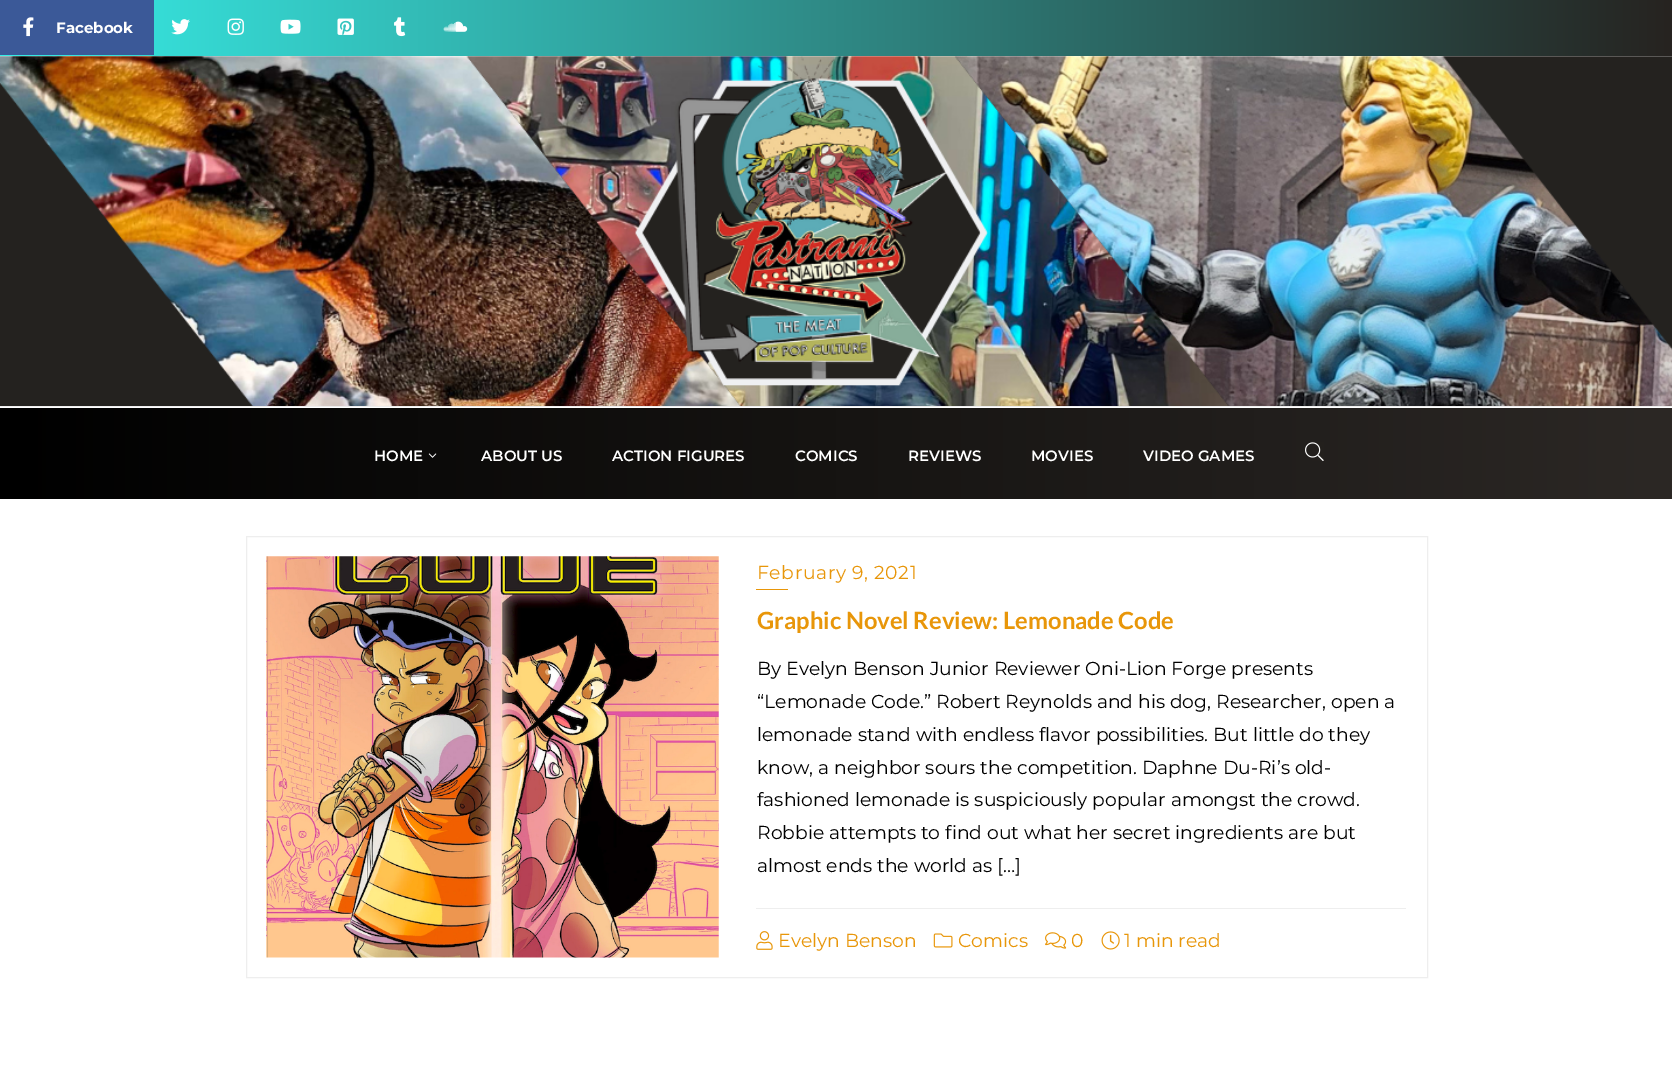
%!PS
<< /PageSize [1672 1081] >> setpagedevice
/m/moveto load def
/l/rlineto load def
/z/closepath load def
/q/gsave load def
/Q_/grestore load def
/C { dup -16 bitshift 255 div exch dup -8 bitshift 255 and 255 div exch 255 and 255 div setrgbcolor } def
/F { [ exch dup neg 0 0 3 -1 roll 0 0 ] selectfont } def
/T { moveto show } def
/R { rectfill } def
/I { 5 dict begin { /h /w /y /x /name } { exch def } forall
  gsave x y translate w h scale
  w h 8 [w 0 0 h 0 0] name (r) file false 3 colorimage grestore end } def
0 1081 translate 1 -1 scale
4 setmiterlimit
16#FFFFFF C
0 0 1672 1081 R
q 0 0 m 1672 0 l 0 56 l -1672 0 l z clip newpath
<< /ShadingType 2 /ColorSpace /DeviceRGB /Coords [0 28 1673 27] /Extend [true true] /Function << /FunctionType 2 /Domain [0 1] /C0 [.216 .937 .914] /C1 [.149 .137 .125] /N 1 >> >> shfill Q_
16#3B5998 C
0 0 154 55 R
(1.rgb) 23 17 11 20 I
/Montserrat-Bold 15 F
16#FFFFFF C
(Facebook) 56 33 T
(2.rgb) 171 19 19 16 I
(3.rgb) 227 18 17 17 I
(4.rgb) 280 19 21 15 I
(5.rgb) 337 18 17 17 I
(6.rgb) 394 17 12 20 I
(7.rgb) 443 21 25 11 I
(8.rgb) 0 56 1672 350 I
16#EEEEEE C
0 406 1672 1 R
q 0 408 m 1672 0 l 0 91 l -1672 0 l z clip newpath
<< /ShadingType 2 /ColorSpace /DeviceRGB /Coords [0 453 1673 453] /Extend [true true] /Function << /FunctionType 2 /Domain [0 1] /C0 [0 0 0] /C1 [.173 .157 .145] /N 1 >> >> shfill Q_
/Montserrat-SemiBold 15 F
16#FFFFFF C
(HOME) 374 461 T
(9.rgb) 428 453 9 5 I
(ABOUT US) 481 461 T
(ACTION FIGURES) 612 461 T
(COMICS) 795 461 T
(REVIEWS) 908 461 T
(MOVIES) 1031 461 T
(VIDEO GAMES) 1143 461 T
(10.rgb) 1305 442 19 19 I
16#EEEEEE C
246.5 536.5 1181 441 rectstroke
(11.rgb) 266 556 453 402 I
/Montserrat-Regular 18.75 F
16#E89609 C
757 579 m .6 0 (February 9, 2021) ashow
756 589 32 1 R
/Lato-Bold 23.75 F
(Graphic Novel Review: Lemonade Code) 757 629 T
/Montserrat-Regular 18.75 F
16#000000 C
(By Evelyn Benson Junior Reviewer Oni-Lion Forge presents) 757 675 T
(“Lemonade Code.” Robert Reynolds and his dog, Researcher, open a) 757 708 T
(lemonade stand with endless flavor possibilities. But little do they) 757 741 T
(know, a neighbor sours the competition. Daphne Du-Ri’s old-) 757 774 T
(fashioned lemonade is suspiciously popular amongst the crowd.) 757 806 T
(Robbie attempts to find out what her secret ingredients are but) 757 839 T
(almost ends the world as […]) 757 872 T
16#EEEEEE C
756 908 650 1 R
(12.rgb) 756 931 17 19 I
16#E89609 C
(Evelyn Benson) 778 947 T
(13.rgb) 933 933 20 15 I
(Comics) 958 947 T
(14.rgb) 1045 932 22 17 I
(0) 1071 947 T
(15.rgb) 1101 931 19 19 I
(1 min read) 1124 947 T
showpage
